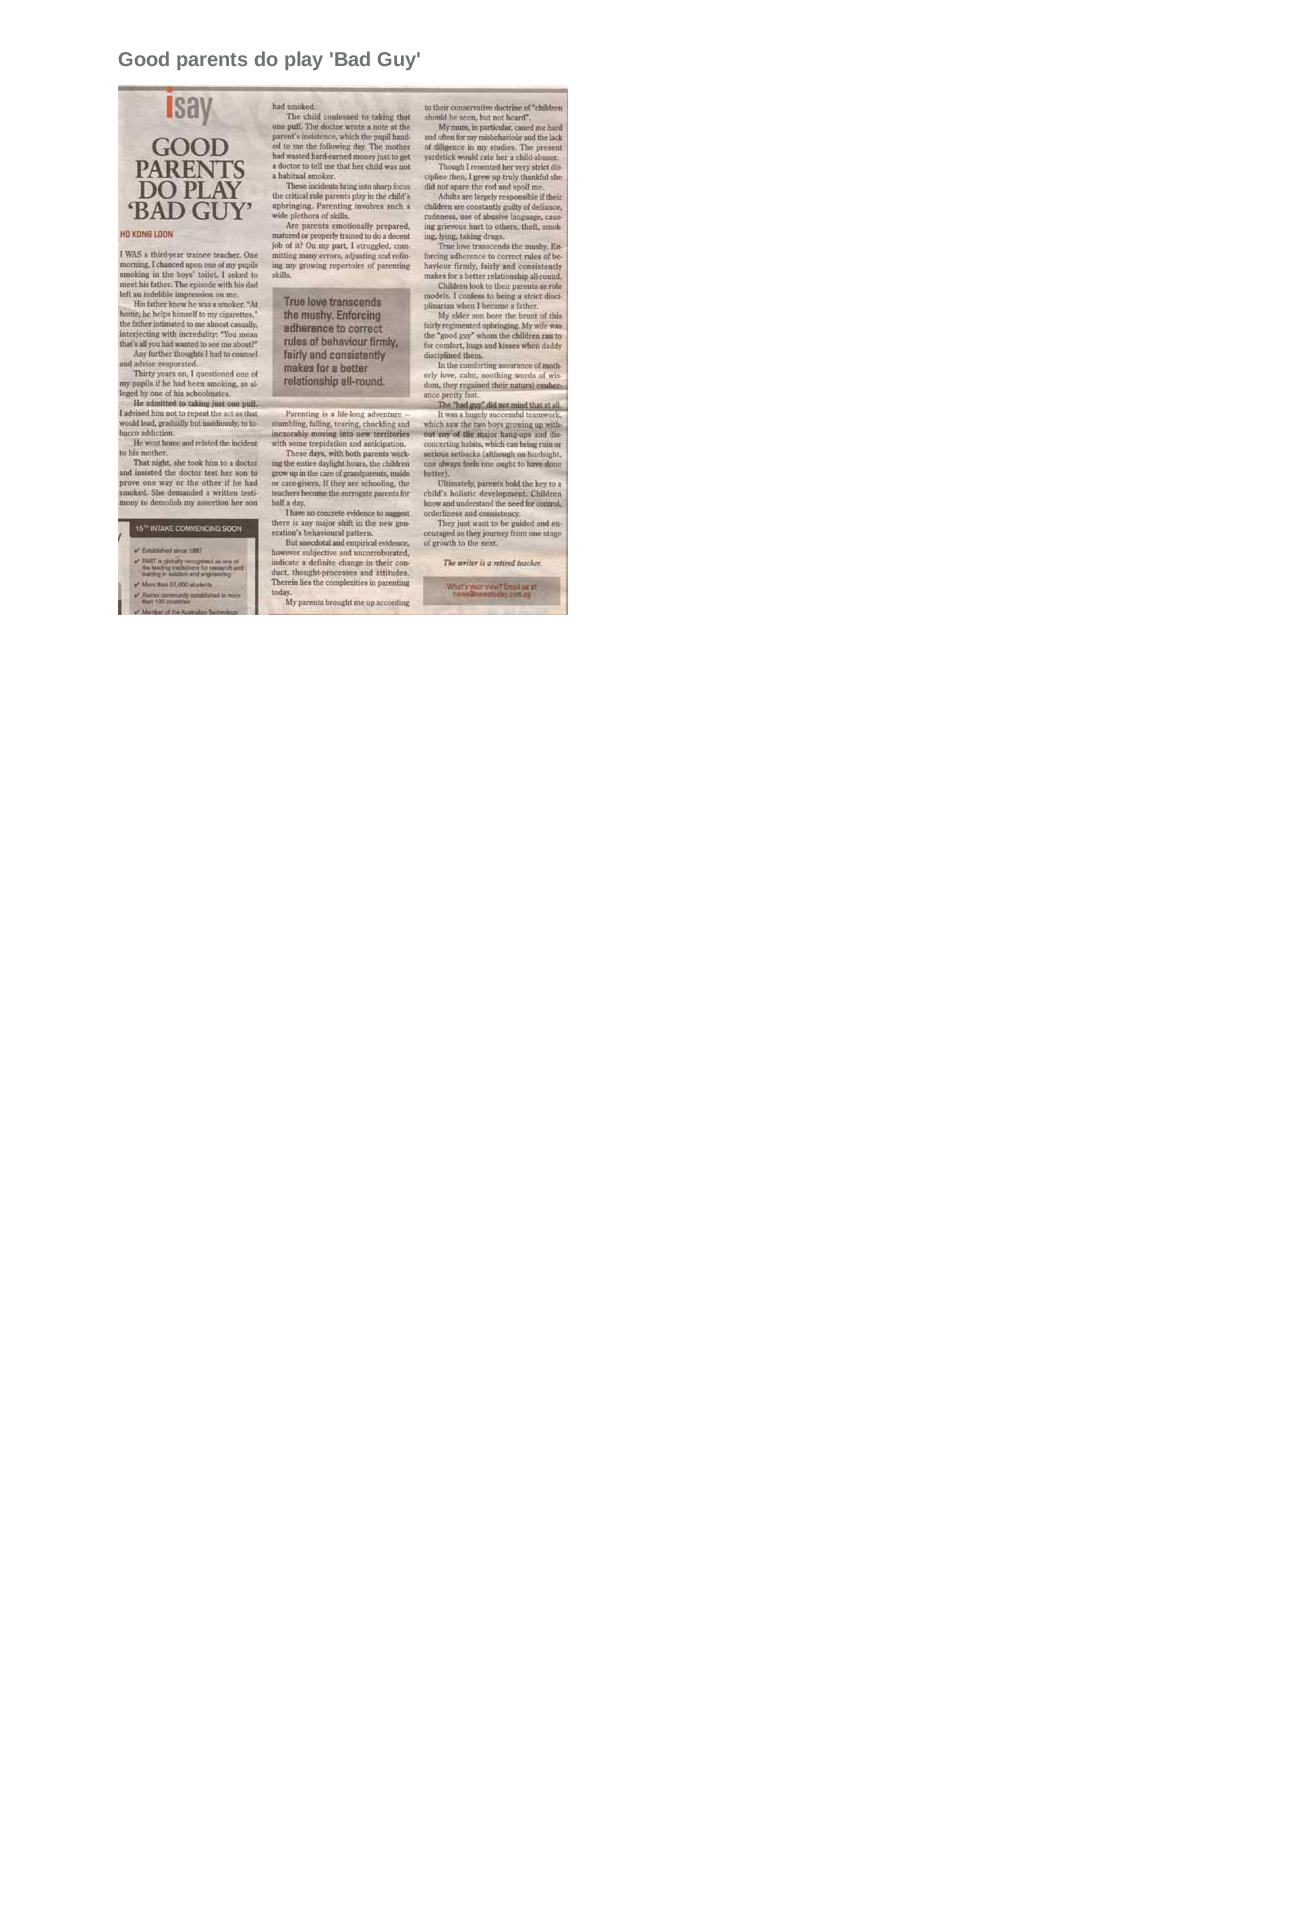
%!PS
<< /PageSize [1303 1905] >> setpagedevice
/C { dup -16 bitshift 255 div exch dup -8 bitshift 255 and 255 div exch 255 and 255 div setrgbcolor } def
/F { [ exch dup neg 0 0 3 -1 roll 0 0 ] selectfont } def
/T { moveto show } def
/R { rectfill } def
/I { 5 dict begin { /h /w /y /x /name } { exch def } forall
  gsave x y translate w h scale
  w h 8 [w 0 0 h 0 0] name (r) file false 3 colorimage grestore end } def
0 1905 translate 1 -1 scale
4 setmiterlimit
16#FFFFFF C
0 0 1303 1905 R
/LiberationSans-Bold 20 F
16#6E7374 C
(Good parents do play 'Bad Guy') 118 66 T
(1.rgb) 118 85 450 530 I
showpage
